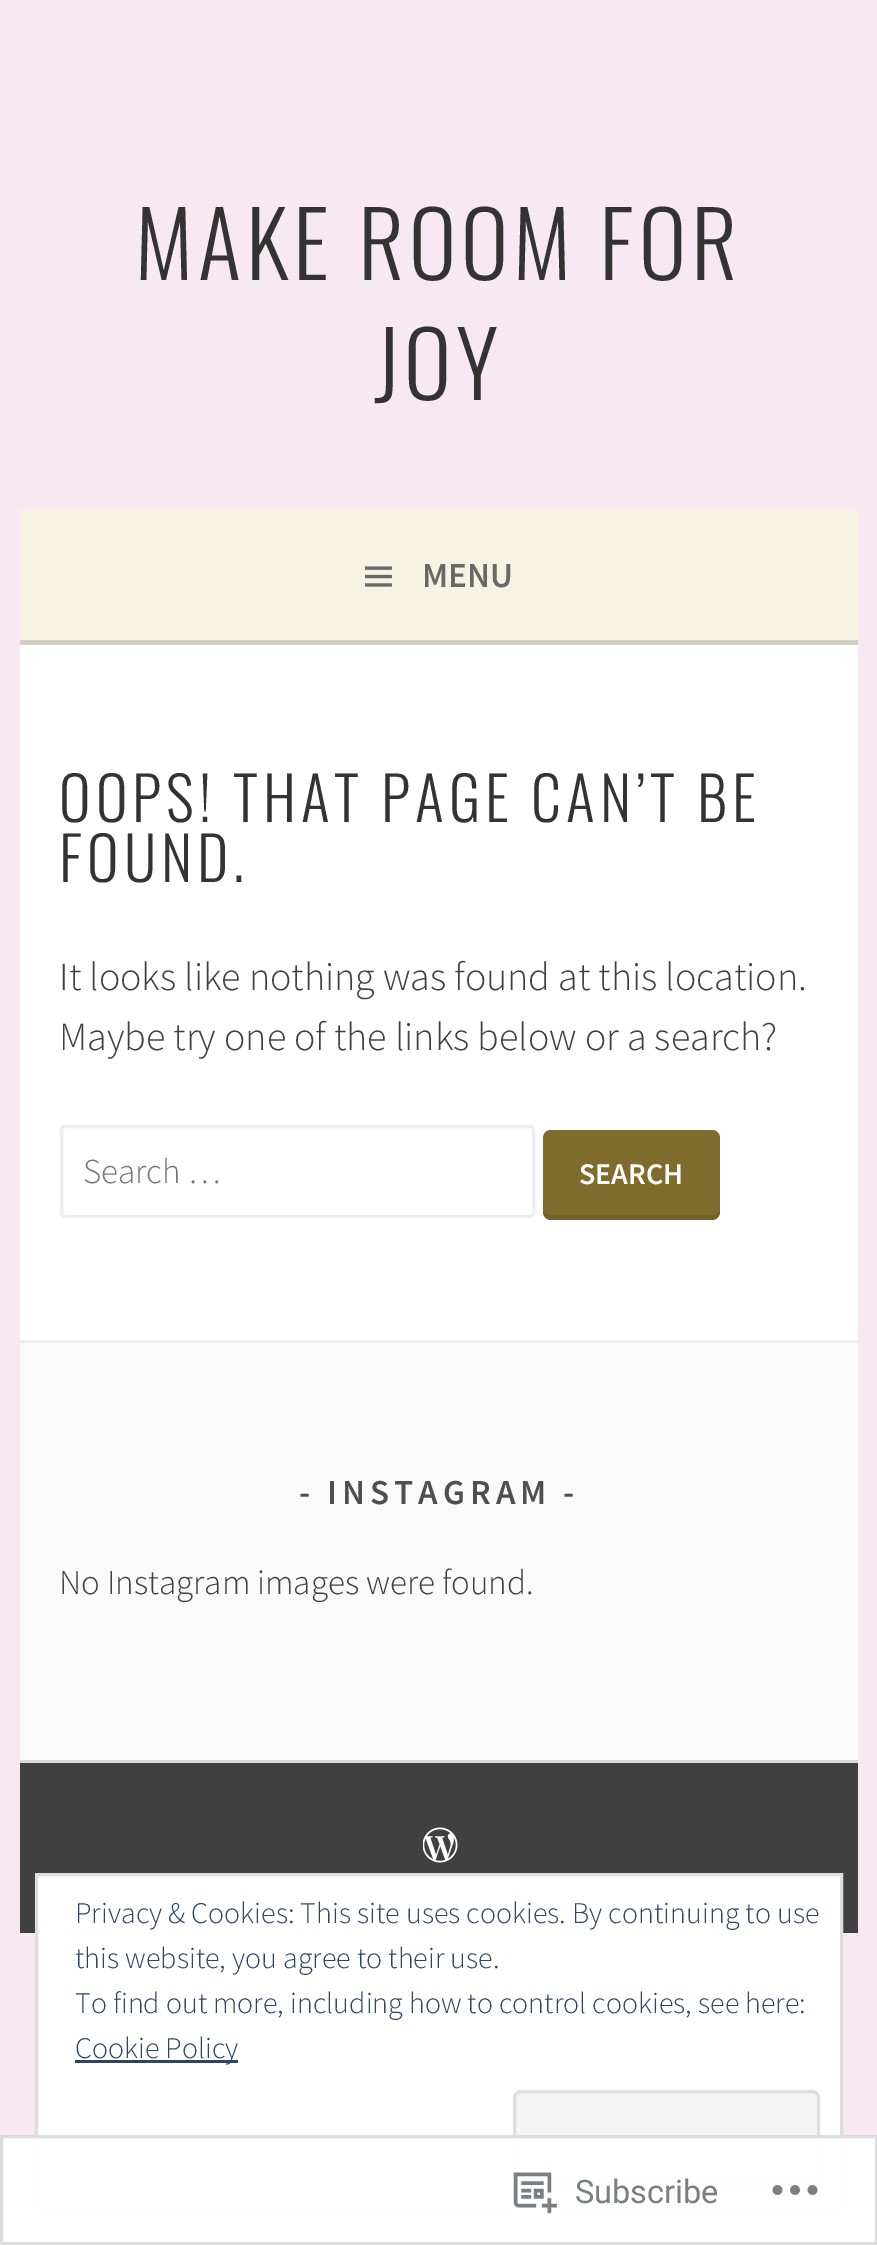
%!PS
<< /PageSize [877 2245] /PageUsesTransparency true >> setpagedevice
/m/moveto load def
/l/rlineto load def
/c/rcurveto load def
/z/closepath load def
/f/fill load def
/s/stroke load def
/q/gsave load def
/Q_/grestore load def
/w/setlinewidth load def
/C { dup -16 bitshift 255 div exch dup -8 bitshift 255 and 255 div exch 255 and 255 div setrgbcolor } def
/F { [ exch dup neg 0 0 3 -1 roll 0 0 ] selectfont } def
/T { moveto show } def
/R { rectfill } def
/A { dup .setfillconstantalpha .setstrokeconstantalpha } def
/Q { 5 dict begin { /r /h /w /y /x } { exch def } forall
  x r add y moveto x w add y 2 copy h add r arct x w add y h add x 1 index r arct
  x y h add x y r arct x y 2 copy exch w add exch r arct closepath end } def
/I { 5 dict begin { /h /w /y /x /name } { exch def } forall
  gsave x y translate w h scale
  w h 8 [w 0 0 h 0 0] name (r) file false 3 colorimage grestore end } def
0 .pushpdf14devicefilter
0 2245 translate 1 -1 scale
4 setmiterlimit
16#F7E8F1 C
0 0 877 2245 R
/Oswald-Light 90 F
16#333333 C
135 280 m 5 0 (MAKE ROOM FOR) ashow
374 400 m 5 0 (JOY) ashow
16#F7F3E2 C
20 510 838 130 R
16#D2CFC0 C
20 640 838 5 R
(1.rgb) 365 566 27 21 I
/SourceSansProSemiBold-SemiBold 35 F
16#686868 C
(MENU) 422 587 T
16#FFFFFF C
20 645 838 695 R
/Oswald-Light 60 F
16#333333 C
59 822 m 5 0 (OOPS! THAT PAGE CAN’T BE) ashow
59 882 m 5 0 (FOUND.) ashow
/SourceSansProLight-Light 40 F
16#404040 C
(It looks like nothing was found at this location.) 59 990 T
(Maybe try one of the links below or a search?) 59 1050 T
16#EEEEEE C
3 w
61.5 1126.5 472 90 3.5 Q s
/SourceSansProLight-Light 35 F
16#757575 C
(Search …) 83 1183 T
16#7F6C2D C
543 1130 177 90 8 Q f
0.1 A
16#000000 C
543 1211 m 0 1 l 0 4 4 8 8 8 c 161 0 l 4 0 8 -4 8 -8 c 0 -4 l 0 4 -3 7 -8 7 c -162 0 l -3 0 -6 -1 -7 -4 c z f
/SourceSansProSemiBold-SemiBold 30 F
1 A
16#FFFFFF C
(SEARCH) 579 1184 T
16#FAFAFA C
20 1343 838 417 R
16#EEEEEE C
20 1340 838 3 R
/SourceSansProSemiBold-SemiBold 35 F
16#4F4F4F C
299 1504 m 5 0 (- INSTAGRAM -) ashow
/SourceSansProLight-Light 35 F
16#404040 C
(No Instagram images were found.) 59 1594 T
20 1763 838 170 R
16#D9D9D9 C
20 1760 838 3 R
(2.rgb) 423 1827 35 36 I
16#FFFFFF C
36.5 1874.5 m 805 0 l 0 334 l -805 0 l z q f Q_
16#DEDEDE C
s
/SourceSansProLight-Light 30 F
16#2E4467 C
(Privacy & Cookies: This site uses cookies. By continuing to use) 75 1923 T
(this website, you agree to their use.) 75 1968 T
(To find out more, including how to control cookies, see here:) 75 2013 T
75 2060 163 3 R
(Cookie Policy) 75 2058 T
16#F3F3F3 C
513 2090 307 98 8 Q f
16#DBDBDB C
515 2175 m 0 5 l 0 3 2 5 5 5 c 293 0 l 3 0 5 -2 5 -5 c 0 -5 l 0 3 -3 5 -6 5 c -292 0 l -3 0 -5 -2 -5 -5 c z f
16#DEDEDE C
514.5 2091.5 304 95 6.5 Q s
0.98 A
16#FFFFFF C
0 2135 877 110 R
16#DCDCDE C
1.5 2136.5 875 107 rectstroke
1 A
(3.rgb) 513 2172 44 42 I
/Roboto-Regular 32.5 F
16#7B7F84 C
(Subscribe) 575 2203 T
(4.rgb) 772 2185 46 10 I
.poppdf14devicefilter showpage
